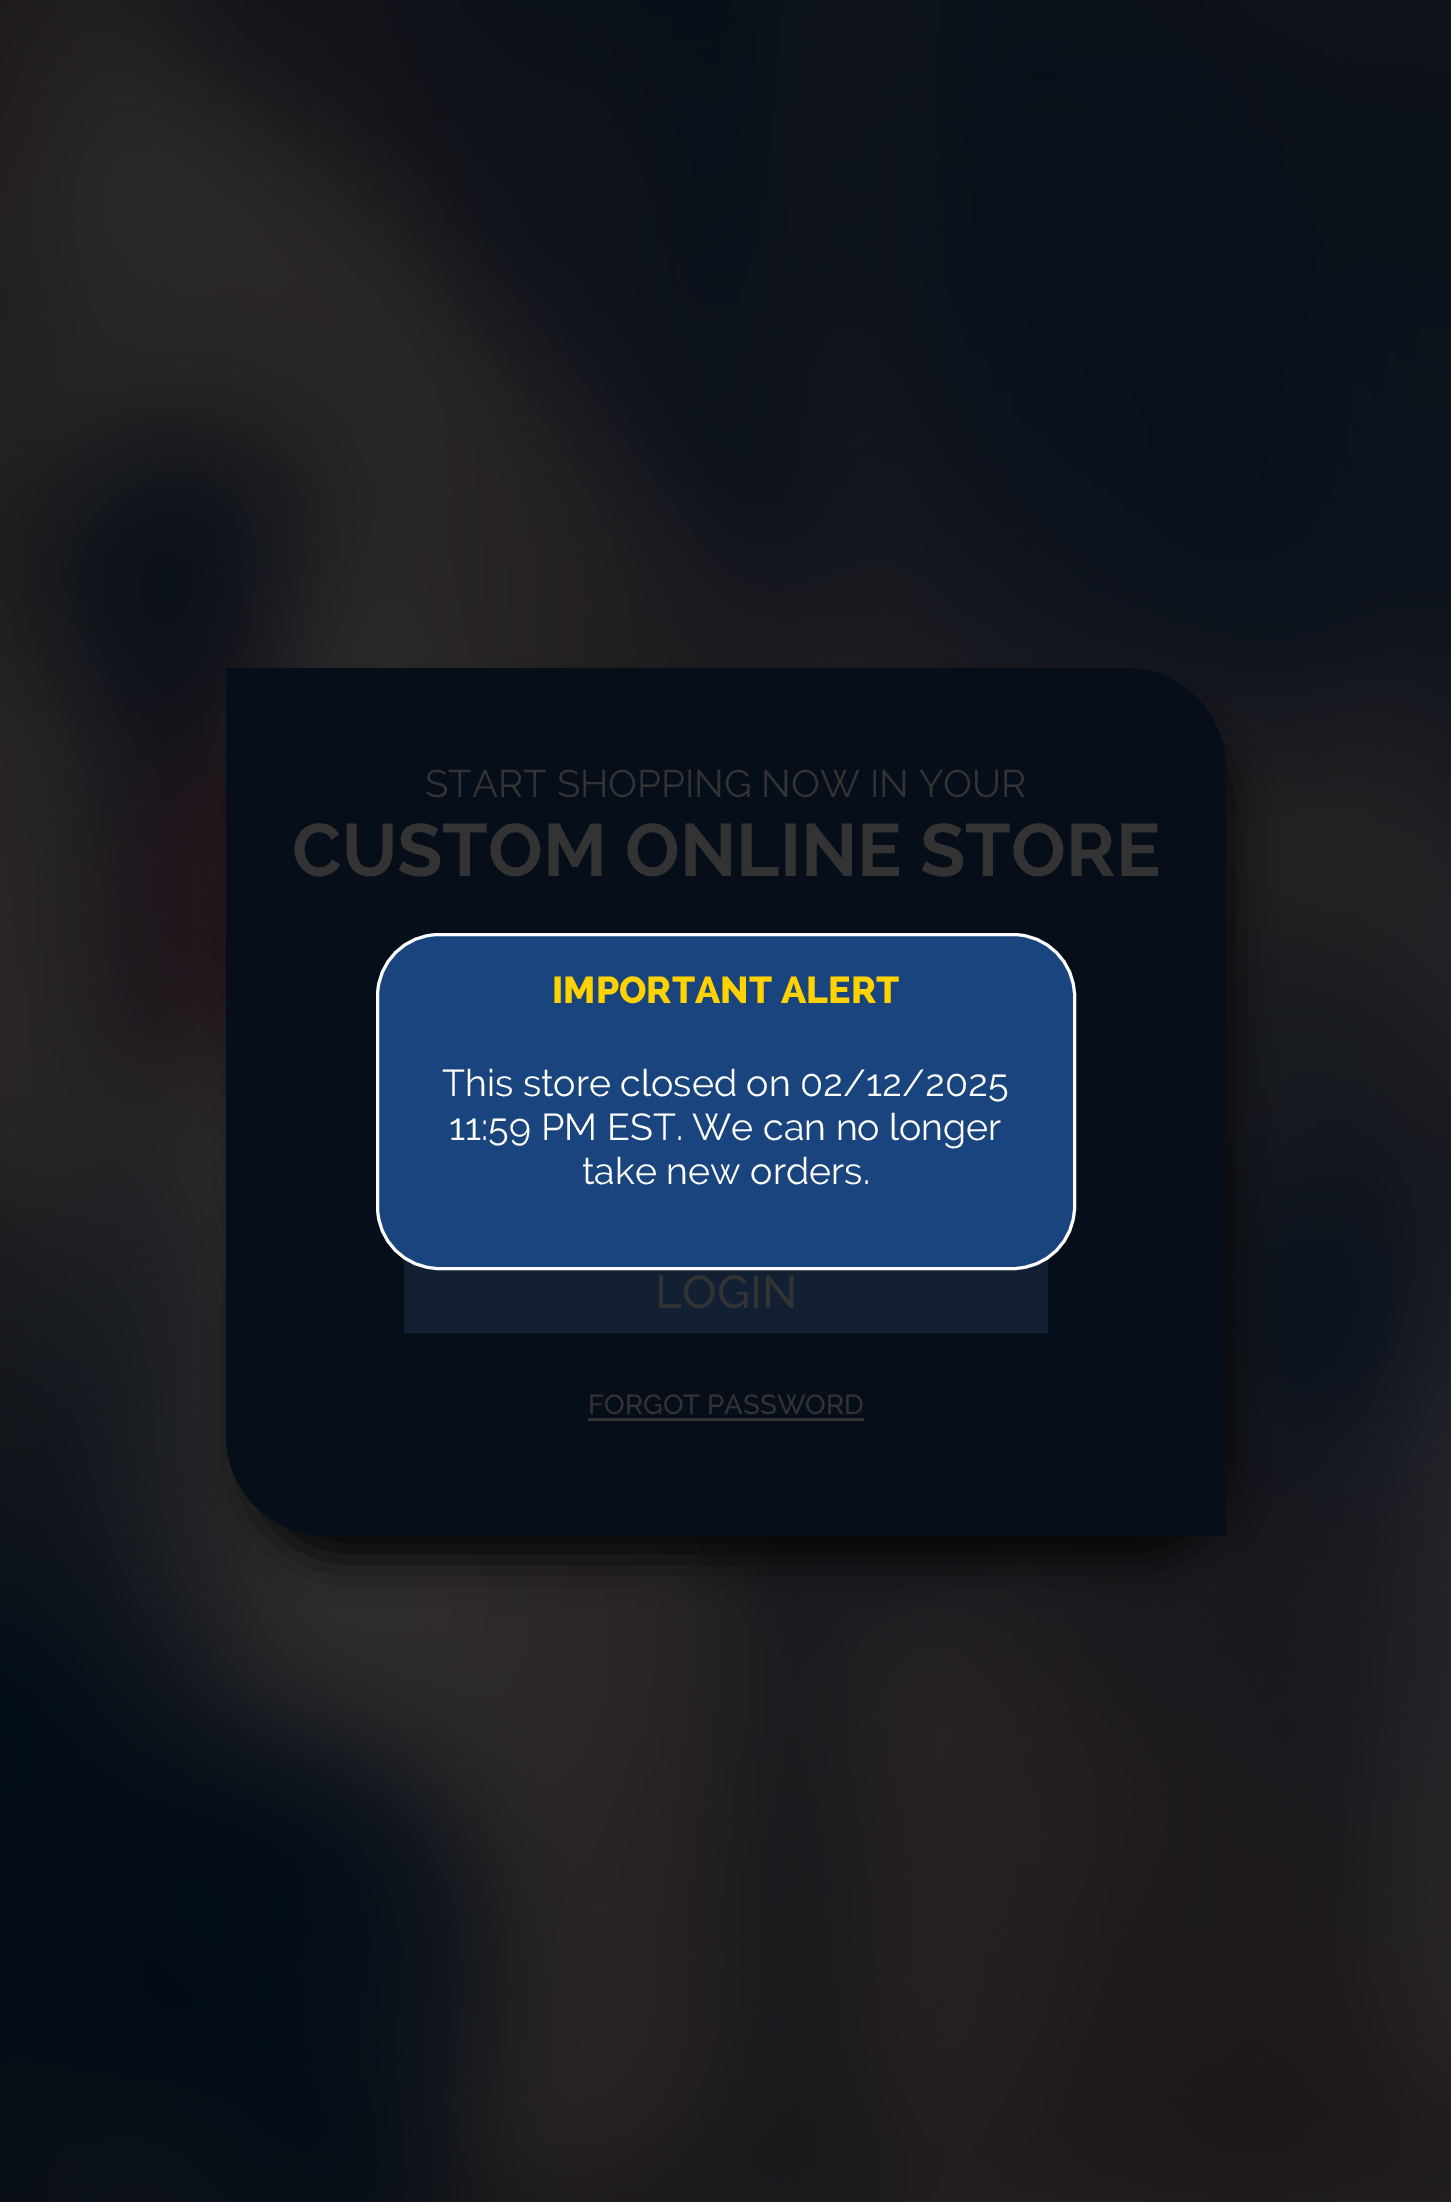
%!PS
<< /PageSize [1451 2202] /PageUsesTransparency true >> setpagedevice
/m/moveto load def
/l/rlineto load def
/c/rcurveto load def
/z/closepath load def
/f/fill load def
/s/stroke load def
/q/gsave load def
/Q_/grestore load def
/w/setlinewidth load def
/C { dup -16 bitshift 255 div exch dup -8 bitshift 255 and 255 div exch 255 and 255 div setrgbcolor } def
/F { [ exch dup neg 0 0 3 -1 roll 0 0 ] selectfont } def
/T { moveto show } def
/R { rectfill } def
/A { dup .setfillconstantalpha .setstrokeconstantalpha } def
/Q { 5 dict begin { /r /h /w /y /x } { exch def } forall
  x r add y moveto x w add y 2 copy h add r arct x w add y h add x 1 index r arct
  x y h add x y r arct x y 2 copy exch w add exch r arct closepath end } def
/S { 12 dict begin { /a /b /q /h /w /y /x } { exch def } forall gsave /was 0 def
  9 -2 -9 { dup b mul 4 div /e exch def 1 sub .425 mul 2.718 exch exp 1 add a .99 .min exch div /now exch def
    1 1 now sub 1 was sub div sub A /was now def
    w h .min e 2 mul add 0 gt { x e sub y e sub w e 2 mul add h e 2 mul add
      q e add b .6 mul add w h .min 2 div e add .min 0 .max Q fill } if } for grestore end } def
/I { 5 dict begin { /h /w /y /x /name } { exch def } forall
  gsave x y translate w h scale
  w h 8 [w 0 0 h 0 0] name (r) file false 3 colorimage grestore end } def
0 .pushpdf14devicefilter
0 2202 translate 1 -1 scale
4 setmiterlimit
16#FFFFFF C
0 0 1451 2202 R
(1.rgb) 0 0 1451 2202 I
16#070707 C
249 709 982 851 91 22 1 S
16#050E19 C
226 668 m 900 0 l 55 0 100 45 100 100 c 0 768 l -900 0 l -55 0 -100 -45 -100 -100 c z f
/Raleway-Regular 38.3 F
16#333333 C
(START SHOPPING NOW IN YOUR) 425 797 T
/Raleway-Bold 74 F
(CUSTOM ONLINE STORE) 292 876 T
16#132033 C
404 1259 644 74 R
/Raleway-Medium 46 F
16#333333 C
(LOGIN) 655 1308 T
/Raleway-Medium 27.5 F
(FORGOT PASSWORD) 588 1414 T
588 1418 276 3 R
16#1A447D C
377.5 934.5 697 334 61.5 Q q f Q_
16#FFFFFF C
3 w
s
/Raleway-ExtraBold 37.5 F
16#FFD200 C
(IMPORTANT ALERT) 552 1003 T
/Raleway-Regular 37.5 F
16#FFFFFF C
(This store closed on 02/12/2025) 442 1096 T
(11:59 PM EST. We can no longer) 449 1140 T
(take new orders.) 582 1184 T
.poppdf14devicefilter showpage
